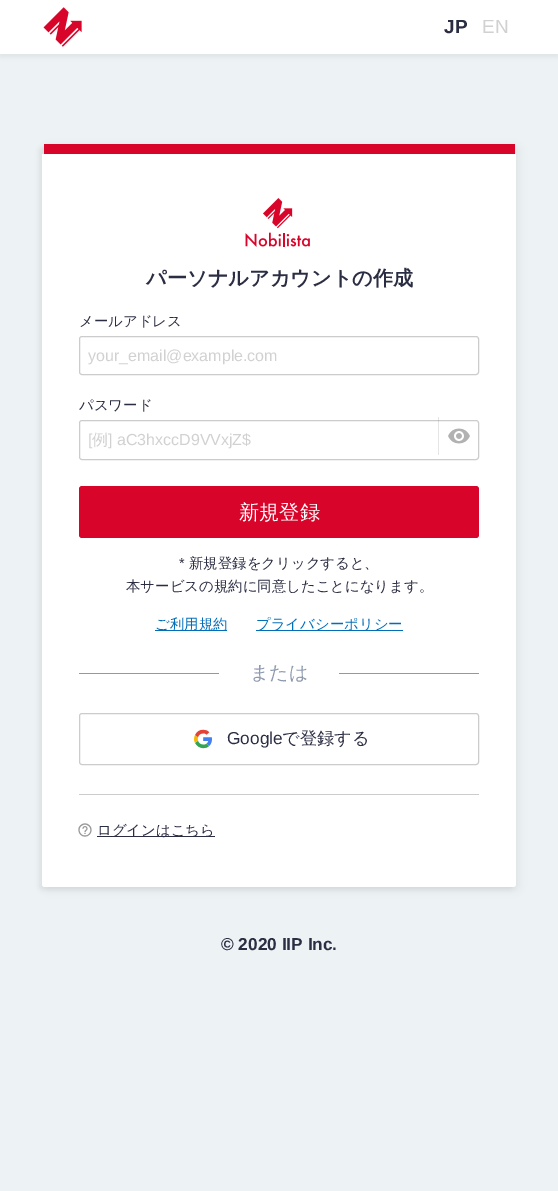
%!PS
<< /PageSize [558 1191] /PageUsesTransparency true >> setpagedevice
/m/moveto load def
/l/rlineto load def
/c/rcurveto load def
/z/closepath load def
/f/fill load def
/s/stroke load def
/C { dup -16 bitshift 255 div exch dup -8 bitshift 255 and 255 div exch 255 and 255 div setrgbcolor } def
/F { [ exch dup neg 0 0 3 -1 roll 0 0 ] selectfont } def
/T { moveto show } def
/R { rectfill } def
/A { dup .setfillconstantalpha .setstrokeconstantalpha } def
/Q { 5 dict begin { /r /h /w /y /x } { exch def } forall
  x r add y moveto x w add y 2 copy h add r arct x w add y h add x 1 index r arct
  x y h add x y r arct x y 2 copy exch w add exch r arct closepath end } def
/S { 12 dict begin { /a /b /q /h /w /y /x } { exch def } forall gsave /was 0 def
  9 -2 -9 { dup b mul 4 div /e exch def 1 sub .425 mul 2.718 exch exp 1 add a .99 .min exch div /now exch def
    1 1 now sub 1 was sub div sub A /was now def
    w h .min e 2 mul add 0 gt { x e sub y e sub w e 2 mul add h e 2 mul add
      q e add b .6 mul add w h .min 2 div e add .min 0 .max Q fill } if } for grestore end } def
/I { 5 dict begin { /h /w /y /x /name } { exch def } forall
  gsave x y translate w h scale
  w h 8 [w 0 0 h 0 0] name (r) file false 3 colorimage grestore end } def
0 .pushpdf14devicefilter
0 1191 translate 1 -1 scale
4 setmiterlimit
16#EDF2F4 C
0 0 558 1191 R
16#000000 C
0 3 558 54 0 2.5 .05 S
16#FFFFFF C
0 0 558 54 R
(1.rgb) 43 7 39 40 I
/LiberationSans-Bold 19 F
16#2B2D42 C
(JP) 444 33 T
/LiberationSans-Regular 19 F
16#D1D1D1 C
(EN) 482 33 T
16#000000 C
39 147 474 743 3 2.5 .05 S
45 147 474 743 3 5 .05 S
16#FFFFFF C
45 154 m 471 0 l 0 730 l 0 2 -1 3 -3 3 c -468 0 l -2 0 -3 -1 -3 -3 c 0 -730 l z f
16#D90429 C
44 144 471 10 R
(2.rgb) 245 198 65 49 I
/WenQuanYiZenHei-Bold 20.2 F
16#2B2D42 C
(パーソナルアカウントの作成) 146 285 T
/WenQuanYiZenHei-Medium 14.4 F
(メールアドレス) 79 326 T
16#CCCCCC C
79.5 336.5 399 38 2.5 Q s
/LiberationSans-Regular 16 F
16#D1D1D1 C
(your_email@example.com) 88 361 T
/WenQuanYiZenHei-Medium 14.4 F
16#2B2D42 C
(パスワード) 79 410 T
16#CCCCCC C
79.5 420.5 399 39 2.5 Q s
/LiberationSans-Regular 16 F
16#D1D1D1 C
([) 88 445 T
/WenQuanYiZenHei-Medium 16 F
(例) 92 445 T
/LiberationSans-Regular 16 F
(] aC3hxccD9VVxjZ$) 108 445 T
0.1 A
16#000000 C
438 417 1 38 R
1 A
(3.rgb) 448 428 22 16 I
16#D90429 C
79 486 400 52 3 Q f
/WenQuanYiZenHei-Medium 20.2 F
16#FFFFFF C
(新規登録) 239 519 T
/LiberationSans-Regular 14.4 F
16#2B2D42 C
(*) 179 568 T
/WenQuanYiZenHei-Medium 14.4 F
(新規登録をクリックすると、) 189 568 T
(本サービスの規約に同意したことになります。) 126 591 T
16#036EB8 C
155 630 72 1 R
(ご利用規約) 155 629 T
256 630 147 1 R
(プライバシーポリシー) 256 629 T
16#8D99AE C
79 673 140 1 R
/WenQuanYiZenHei-Medium 19 F
(または) 250 679 T
339 673 140 1 R
16#CCCCCC C
79.5 713.5 399 51 2.5 Q s
(4.rgb) 194 729 18 20 I
/LiberationSans-Regular 17.25 F
16#2B2D42 C
(Google) 227 744 T
/WenQuanYiZenHei-Medium 17.25 F
(で登録する) 282 744 T
16#CCCCCC C
79 794 400 1 R
(5.rgb) 78 823 14 14 I
16#2B2D42 C
97 836 118 1 R
/WenQuanYiZenHei-Medium 14.4 F
(ログインはこちら) 97 835 T
/LiberationSans-Bold 17.25 F
(© 2020 IIP Inc.) 221 950 T
.poppdf14devicefilter showpage
